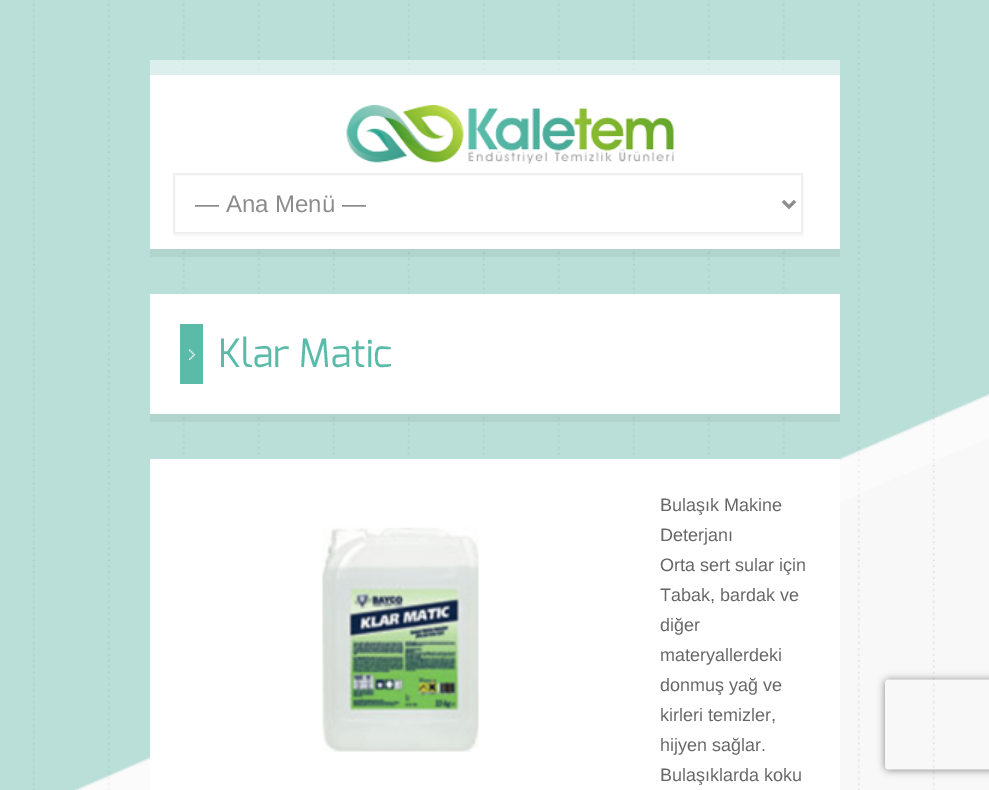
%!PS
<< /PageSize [989 790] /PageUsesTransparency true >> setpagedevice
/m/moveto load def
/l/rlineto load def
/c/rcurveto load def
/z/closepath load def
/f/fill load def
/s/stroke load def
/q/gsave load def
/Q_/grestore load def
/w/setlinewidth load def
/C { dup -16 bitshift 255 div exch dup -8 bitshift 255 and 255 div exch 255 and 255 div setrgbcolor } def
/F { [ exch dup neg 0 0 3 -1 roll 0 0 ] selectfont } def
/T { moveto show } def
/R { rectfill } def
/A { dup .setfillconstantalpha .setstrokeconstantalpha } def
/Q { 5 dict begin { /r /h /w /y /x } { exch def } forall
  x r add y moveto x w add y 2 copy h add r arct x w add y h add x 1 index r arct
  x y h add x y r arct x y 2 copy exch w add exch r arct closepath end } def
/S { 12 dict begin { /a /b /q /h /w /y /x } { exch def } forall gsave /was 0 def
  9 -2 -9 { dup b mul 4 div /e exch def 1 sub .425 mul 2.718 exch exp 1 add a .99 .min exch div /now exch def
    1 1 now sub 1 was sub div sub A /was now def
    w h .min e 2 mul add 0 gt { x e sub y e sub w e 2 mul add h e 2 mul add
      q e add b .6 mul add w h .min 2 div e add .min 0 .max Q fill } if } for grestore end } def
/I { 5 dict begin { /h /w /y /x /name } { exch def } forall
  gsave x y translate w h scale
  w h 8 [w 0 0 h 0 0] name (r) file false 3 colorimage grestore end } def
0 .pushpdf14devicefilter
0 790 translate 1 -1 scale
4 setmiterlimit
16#FFFFFF C
0 0 989 790 R
(1.rgb) 0 0 989 790 I
q
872 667 m 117 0 l 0 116 l -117 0 l z 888 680 m 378 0 l 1.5 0 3 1.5 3 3 c 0 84 l 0 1.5 -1.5 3 -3 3 c -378 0 l -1.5 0 -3 -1.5 -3 -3 c 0 -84 l 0 -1.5 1.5 -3 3 -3 c z eoclip newpath
16#808080 C
885 680 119 90 3 4 1 S
Q_
(2.rgb) 0 0 989 790 I
0.5 A
150 60 690 15 R
0.05 A
16#000000 C
150 249 690 8 R
1 A
16#FFFFFF C
150 75 690 174 R
(3.rgb) 346 105 328 59 I
16#F9F9F9 C
174 234 m 0 3 l 630 0 l 0 -61 l -2 0 l 0 58 l z f
16#F0F0F0 C
2 w
174 174 628 59 rectstroke
16#8C8C8C C
3 w
783 201 m 6 6 l 6 -6 l s
/LiberationSans-Regular 24 F
(— Ana Menü —) 195 212 T
0.05 A
16#000000 C
150 414 690 8 R
1 A
16#FFFFFF C
150 294 690 120 R
16#5BBBA9 C
180 324 23 60 R
(4.rgb) 189 349 6 11 I
/Exo-Regular 39 F
(Klar Matic) 218 367 T
16#FFFFFF C
150 459 690 331 R
(5.rgb) 322 527 157 225 I
/LiberationSans-Regular 18 F
16#666666 C
(Bulaşık Makine) 660 511 T
(Deterjanı) 660 541 T
(Orta sert sular için) 660 571 T
(Tabak, bardak ve) 660 601 T
(diğer) 660 631 T
(materyallerdeki) 660 661 T
(donmuş yağ ve) 660 691 T
(kirleri temizler,) 660 721 T
(hijyen sağlar.) 660 751 T
(Bulaşıklarda koku) 660 781 T
.poppdf14devicefilter showpage
